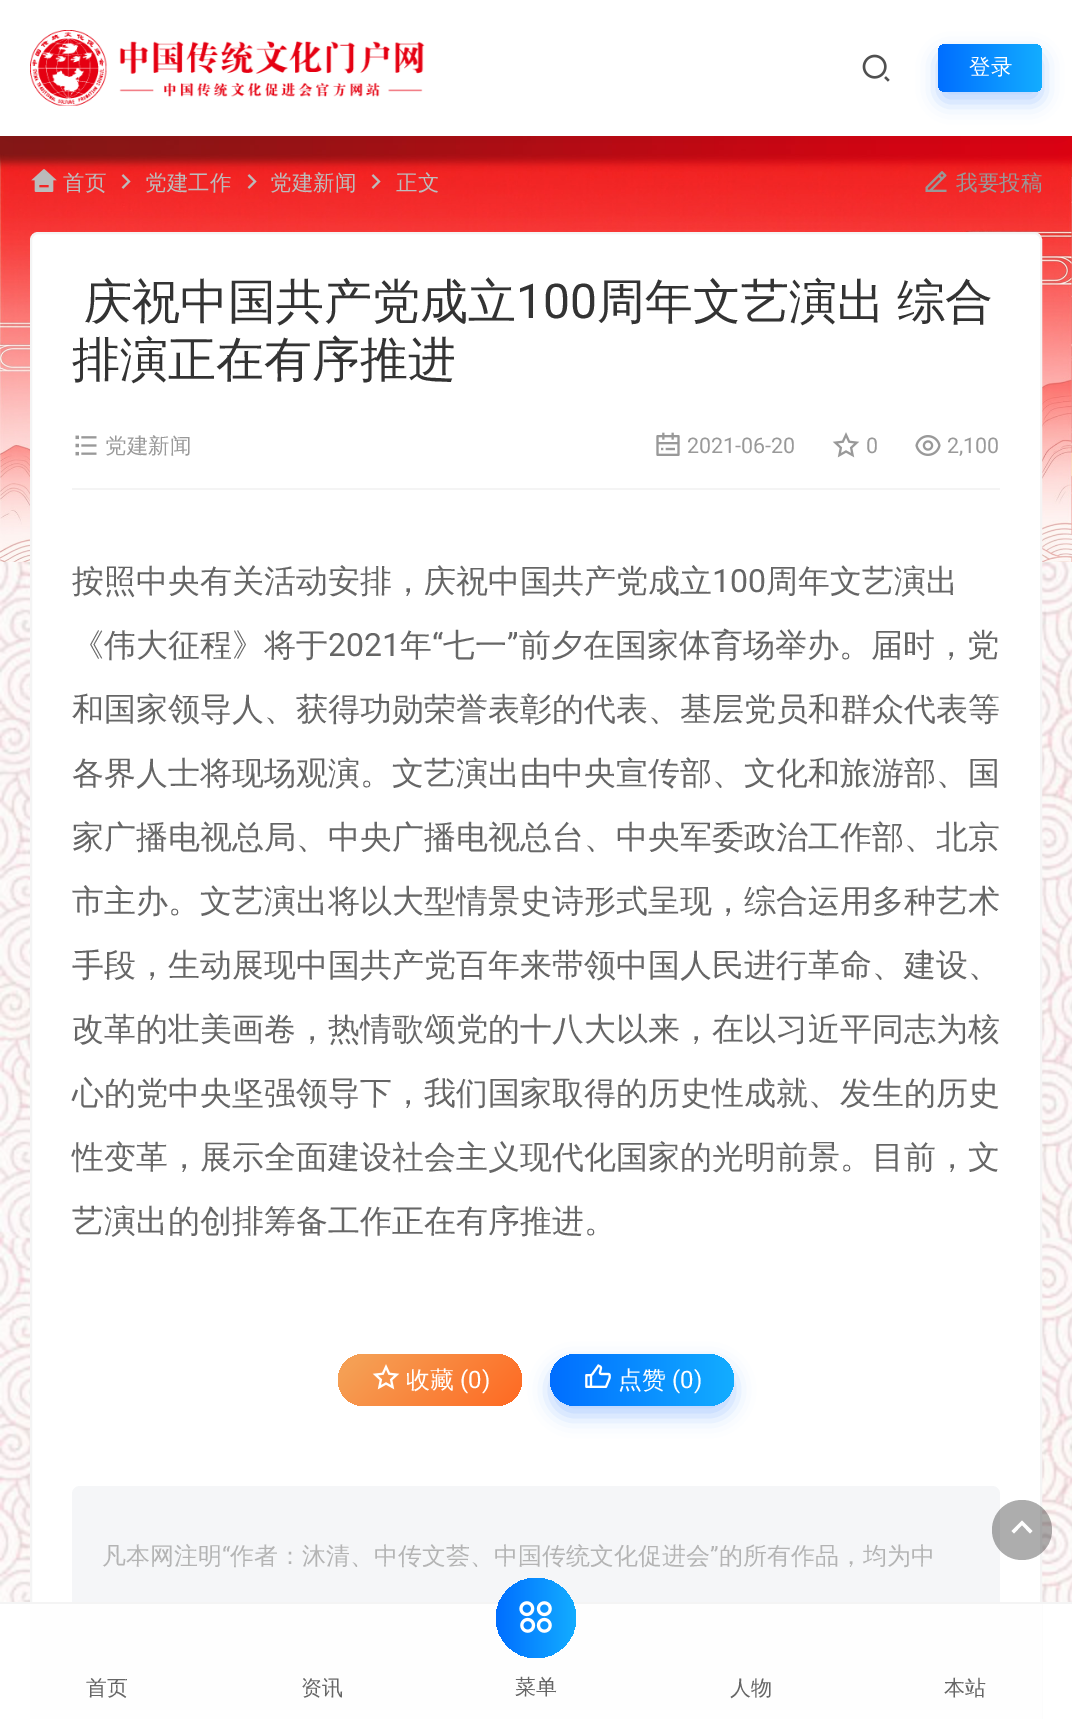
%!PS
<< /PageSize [1072 1719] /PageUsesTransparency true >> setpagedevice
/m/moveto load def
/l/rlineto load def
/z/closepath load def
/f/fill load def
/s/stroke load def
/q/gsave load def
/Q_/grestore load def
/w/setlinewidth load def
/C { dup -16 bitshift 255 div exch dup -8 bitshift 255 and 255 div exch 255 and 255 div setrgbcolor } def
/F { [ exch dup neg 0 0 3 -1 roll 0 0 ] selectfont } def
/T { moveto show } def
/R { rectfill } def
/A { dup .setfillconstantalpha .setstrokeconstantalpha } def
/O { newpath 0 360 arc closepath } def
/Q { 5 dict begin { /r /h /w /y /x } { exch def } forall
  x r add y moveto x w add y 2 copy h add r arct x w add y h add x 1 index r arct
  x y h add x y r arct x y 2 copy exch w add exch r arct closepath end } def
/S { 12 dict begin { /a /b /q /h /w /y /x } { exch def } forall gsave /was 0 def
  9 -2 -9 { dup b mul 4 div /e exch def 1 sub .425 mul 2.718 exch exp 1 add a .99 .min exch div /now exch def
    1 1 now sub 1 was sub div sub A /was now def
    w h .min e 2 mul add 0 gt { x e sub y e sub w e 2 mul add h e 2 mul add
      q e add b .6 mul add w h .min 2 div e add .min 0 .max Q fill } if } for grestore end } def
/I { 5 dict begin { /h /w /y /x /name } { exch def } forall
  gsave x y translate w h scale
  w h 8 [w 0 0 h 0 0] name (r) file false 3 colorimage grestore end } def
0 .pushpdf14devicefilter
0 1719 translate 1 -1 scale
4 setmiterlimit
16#FFFFFF C
0 0 1072 1719 R
(1.rgb) 0 562 1072 1040 I
(4.rgb) 0 136 1072 426 I
(5.rgb) 31 169 26 23 I
(6.rgb) 121 174 10 15 I
(7.rgb) 247 174 10 15 I
(8.rgb) 371 174 10 15 I
(9.rgb) 925 171 22 21 I
16#000000 C
0 0 1072 136 0 30 .07 S
16#FFFFFF C
0 0 1072 136 R
(2.rgb) 30 30 395 76 I
(3.rgb) 862 54 28 28 I
16#106EFD C
938 54 104 48 8 10 .3 S
q 938 44 104 48 8 Q clip newpath
<< /ShadingType 2 /ColorSpace /DeviceRGB /Coords [938 68 1042 68] /Extend [true true] /Function << /FunctionType 2 /Domain [0 1] /C0 [0 .431 1] /C1 [.075 .678 1] /N 1 >> >> shfill Q_
/WenQuanYiZenHei-Medium 21.5 F
16#FFFFFF C
(登录) 969 74 T
16#BDBDBD C
(首页) 63 190 T
(党建工作) 145 190 T
(党建新闻) 270 190 T
(正文) 396 190 T
16#999999 C
(我要投稿) 956 190 T
16#FFFFFF C
31 233 1010 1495 7 Q q f Q_
16#F4F4F4 C
2 w
s
72 488 928 2 R
/WenQuanYiZenHei-Medium 48 F
16#333333 C
(庆祝中国共产党成立) 84 318 T
/Roboto-Regular 48 F
(100) 516 318 T
/WenQuanYiZenHei-Medium 48 F
597 318 m -2 0 32 (周年文艺演出 综合) widthshow
(排演正在有序推进) 72 376 T
(10.rgb) 75 435 22 21 I
/WenQuanYiZenHei-Medium 21.5 F
16#999999 C
(党建新闻) 105 453 T
(11.rgb) 656 432 24 24 I
/Roboto-Regular 21.5 F
(2021-06-20) 687 453 T
(12.rgb) 832 432 28 26 I
(0) 866 453 T
(13.rgb) 915 435 26 21 I
(2,100) 947 453 T
/WenQuanYiZenHei-Medium 32 F
16#666666 C
(按照中央有关活动安排，庆祝中国共产党成立) 72 592 T
/Roboto-Regular 32 F
(100) 712 592 T
/WenQuanYiZenHei-Medium 32 F
(周年文艺演出) 766 592 T
(《伟大征程》将于) 72 656 T
/Roboto-Regular 32 F
(2021) 328 656 T
/WenQuanYiZenHei-Medium 32 F
(年) 400 656 T
/Roboto-Regular 32 F
(“) 432 656 T
/WenQuanYiZenHei-Medium 32 F
(七一) 443 656 T
/Roboto-Regular 32 F
(”) 507 656 T
/WenQuanYiZenHei-Medium 32 F
(前夕在国家体育场举办。届时，党) 519 656 T
(和国家领导人、获得功勋荣誉表彰的代表、基层党员和群众代表等) 72 720 T
(各界人士将现场观演。文艺演出由中央宣传部、文化和旅游部、国) 72 784 T
(家广播电视总局、中央广播电视总台、中央军委政治工作部、北京) 72 848 T
(市主办。文艺演出将以大型情景史诗形式呈现，综合运用多种艺术) 72 912 T
(手段，生动展现中国共产党百年来带领中国人民进行革命、建设、) 72 976 T
(改革的壮美画卷，热情歌颂党的十八大以来，在以习近平同志为核) 72 1040 T
(心的党中央坚强领导下，我们国家取得的历史性成就、发生的历史) 72 1104 T
(性变革，展示全面建设社会主义现代化国家的光明前景。目前，文) 72 1168 T
(艺演出的创排筹备工作正在有序推进。) 72 1232 T
q 338 1354 184 52 26 Q clip newpath
<< /ShadingType 2 /ColorSpace /DeviceRGB /Coords [371 1321 489 1439] /Extend [true true] /Function << /FunctionType 3 /Domain [0 1] /Functions [<< /FunctionType 2 /Domain [0 1] /C0 [.961 .624 .329] /C1 [.961 .624 .329] /N 1 >> << /FunctionType 2 /Domain [0 1] /C0 [.961 .624 .329] /C1 [1 .412 .133] /N 1 >>] /Bounds [.1] /Encode [0 1 0 1] >> >> shfill Q_
(14.rgb) 372 1364 28 26 I
/WenQuanYiZenHei-Medium 24 F
16#FFFFFF C
(收藏) 406 1388 T
/Roboto-Regular 24 F
(\(0\)) 460 1388 T
16#106EFD C
550 1364 184 52 26 10 .3 S
q 550 1354 184 52 26 Q clip newpath
<< /ShadingType 2 /ColorSpace /DeviceRGB /Coords [550 1380 734 1380] /Extend [true true] /Function << /FunctionType 2 /Domain [0 1] /C0 [0 .431 1] /C1 [.075 .678 1] /N 1 >> >> shfill Q_
(15.rgb) 585 1364 26 24 I
/WenQuanYiZenHei-Medium 24 F
16#FFFFFF C
(点赞) 618 1388 T
/Roboto-Regular 24 F
(\(0\)) 672 1388 T
16#F5F6F8 C
72 1486 928 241 8 Q f
/WenQuanYiZenHei-Medium 24 F
16#B4B4B4 C
(凡本网注明) 102 1564 T
/Roboto-Regular 24 F
(“) 222 1564 T
/WenQuanYiZenHei-Medium 24 F
(作者：沐清、中传文荟、中国传统文化促进会) 230 1564 T
/Roboto-Regular 24 F
(”) 710 1564 T
/WenQuanYiZenHei-Medium 24 F
(的所有作品，均为中) 719 1564 T
0.32 A
16#000000 C
1022 1530 30 O f
1 A
16#FFFFFF C
1022 1525 m -8 8.5 l -2.5 -2.5 l 10.5 -10.5 l 10.5 10.5 l -2.5 2.5 l z f
16#FEFEFE C
30 1604 1012 115 R
16#F4F4F4 C
0 1602 1072 2 R
/WenQuanYiZenHei-Medium 21 F
16#666666 C
(首页) 86 1695 T
(资讯) 301 1695 T
q 536 1618 40 O clip newpath
<< /ShadingType 2 /ColorSpace /DeviceRGB /Coords [496 1618 576 1618] /Extend [true true] /Function << /FunctionType 2 /Domain [0 1] /C0 [0 .431 1] /C1 [.075 .678 1] /N 1 >> >> shfill Q_
(16.rgb) 519 1601 33 32 I
(菜单) 515 1694 T
(人物) 730 1695 T
(本站) 944 1695 T
.poppdf14devicefilter showpage
